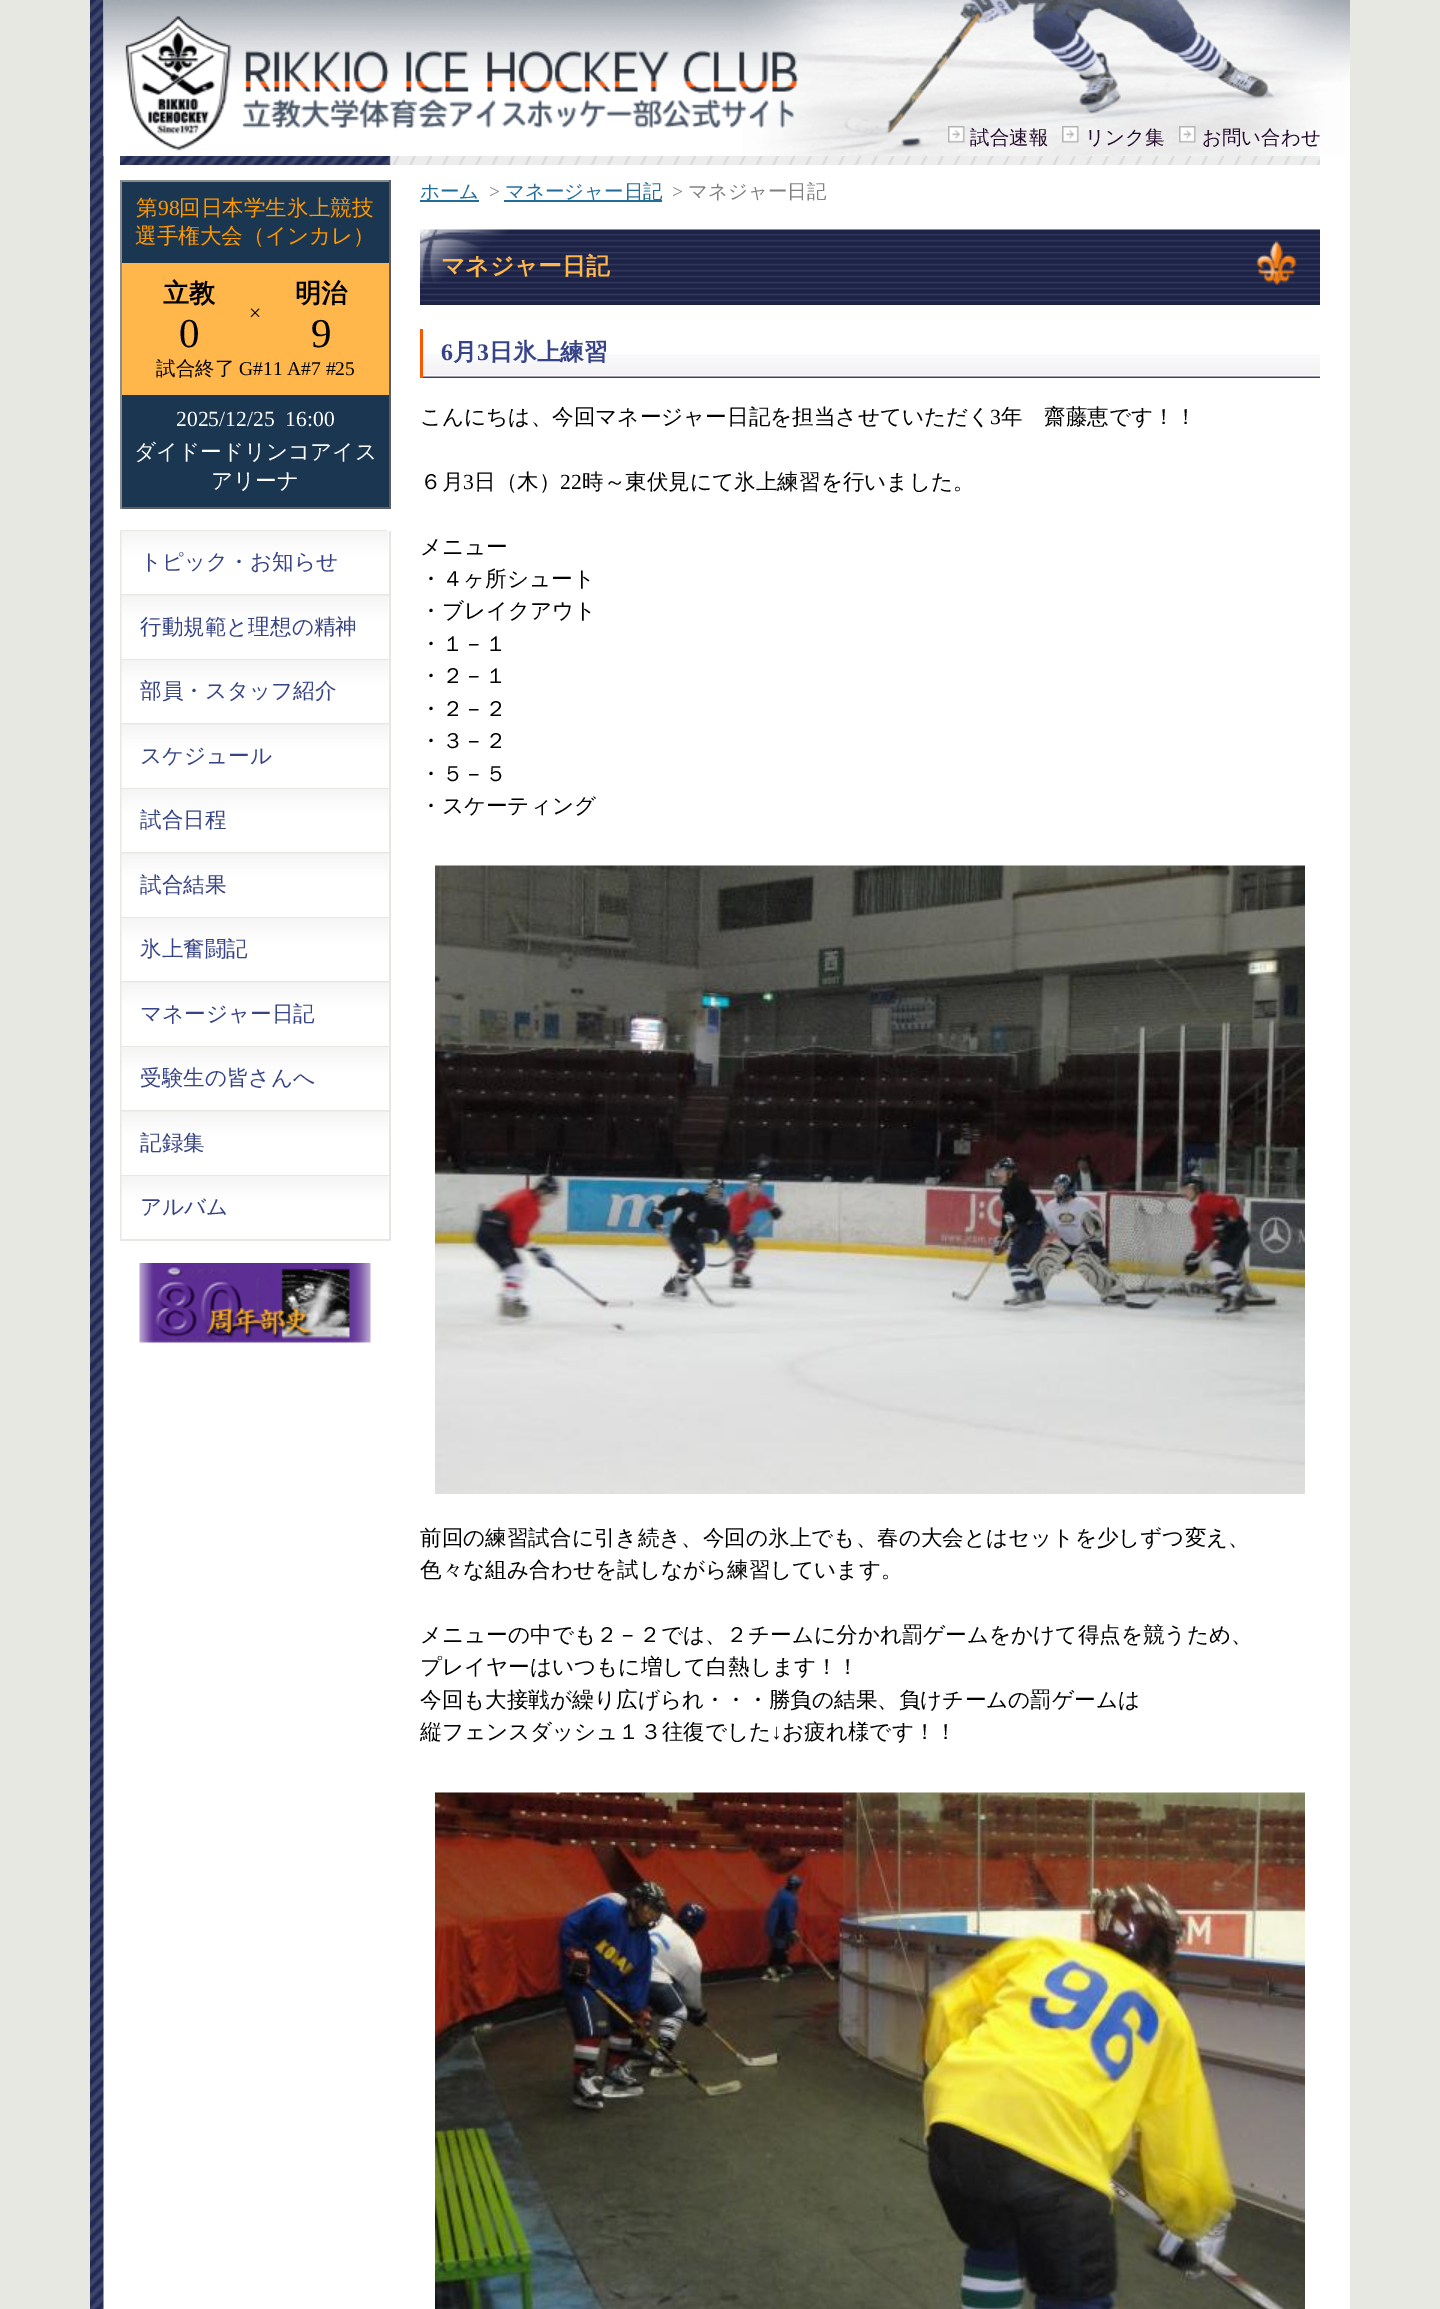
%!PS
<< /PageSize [1440 2309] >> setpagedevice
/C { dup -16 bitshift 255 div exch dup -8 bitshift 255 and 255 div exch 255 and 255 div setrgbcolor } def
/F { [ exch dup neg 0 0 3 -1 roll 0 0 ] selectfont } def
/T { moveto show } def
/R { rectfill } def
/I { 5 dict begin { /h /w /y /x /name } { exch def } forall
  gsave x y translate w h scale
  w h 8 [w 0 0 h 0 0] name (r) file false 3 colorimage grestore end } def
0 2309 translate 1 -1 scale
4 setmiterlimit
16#E7E8E2 C
0 0 1440 2309 R
16#FFFFFF C
103 0 1247 2309 R
(1.rgb) 90 0 14 2309 I
(2.rgb) 103 0 1247 156 I
(3.rgb) 948 126 17 17 I
/WenQuanYiZenHei-Medium 19.5 F
16#250A2E C
(試合速報) 970 144 T
(4.rgb) 1062 126 17 17 I
(リンク集) 1085 144 T
(5.rgb) 1179 126 17 17 I
(お問い合わせ) 1202 144 T
(6.rgb) 120 156 1200 9 I
16#8B8B8B C
120 180 270 2 R
16#5D5D5D C
389 180 2 329 R
120 507 270 2 R
16#8B8B8B C
120 180 2 329 R
16#1B3651 C
122 182 267 81 R
/WenQuanYiZenHei-Medium 21.6 F
16#FF9900 C
(第) 136 215 T
/LiberationSerif-Regular 21.6 F
(98) 158 215 T
/WenQuanYiZenHei-Medium 21.6 F
(回日本学生氷上競技) 179 215 T
(選手権大会（インカレ）) 135 243 T
16#FFB74C C
122 263 267 132 R
/WenQuanYiZenHei-Bold 26 F
16#000000 C
(立教) 163 302 T
/LiberationSerif-Regular 41 F
(0) 179 347 T
/LiberationSerif-Regular 21.6 F
(×) 249 320 T
/WenQuanYiZenHei-Bold 26 F
(明治) 295 302 T
/LiberationSerif-Regular 41 F
(9) 311 347 T
/WenQuanYiZenHei-Medium 19.5 F
(試合終了) 156 375 T
/LiberationSerif-Regular 19.5 F
(G#11 A#7 #25) 239 375 T
16#1B3651 C
122 395 267 112 R
/LiberationSerif-Regular 21.6 F
16#FFFFFF C
(2025/12/25  16:00) 176 426 T
/WenQuanYiZenHei-Medium 21.6 F
(ダイドードリンコアイス) 134 459 T
(アリーナ) 211 488 T
16#E7E8E2 C
120 530 267 1 R
389 531 2 710 R
120 594 270 2 R
120 531 2 65 R
(7.rgb) 121 531 268 63 I
16#364386 C
(トピック・お知らせ) 140 569 T
16#E7E8E2 C
120 659 270 1 R
120 596 2 64 R
(8.rgb) 121 595 268 64 I
16#364386 C
(行動規範と理想の精神) 140 634 T
16#E7E8E2 C
120 723 270 2 R
120 660 2 65 R
(7.rgb) 121 660 268 63 I
16#364386 C
(部員・スタッフ紹介) 140 698 T
16#E7E8E2 C
120 788 270 1 R
120 725 2 64 R
(8.rgb) 121 724 268 64 I
16#364386 C
(スケジュール) 140 763 T
16#E7E8E2 C
120 852 270 2 R
120 789 2 65 R
(7.rgb) 121 789 268 63 I
16#364386 C
(試合日程) 140 827 T
16#E7E8E2 C
120 917 270 1 R
120 854 2 64 R
(8.rgb) 121 853 268 64 I
16#364386 C
(試合結果) 140 892 T
16#E7E8E2 C
120 981 270 2 R
120 918 2 65 R
(7.rgb) 121 918 268 63 I
16#364386 C
(氷上奮闘記) 140 956 T
16#E7E8E2 C
120 1046 270 1 R
120 983 2 64 R
(8.rgb) 121 982 268 64 I
16#364386 C
(マネージャー日記) 140 1021 T
16#E7E8E2 C
120 1110 270 2 R
120 1047 2 65 R
(7.rgb) 121 1047 268 63 I
16#364386 C
(受験生の皆さんへ) 140 1085 T
16#E7E8E2 C
120 1175 270 1 R
120 1112 2 64 R
(8.rgb) 121 1111 268 64 I
16#364386 C
(記録集) 140 1150 T
16#E7E8E2 C
120 1239 270 2 R
120 1176 2 65 R
(7.rgb) 121 1176 268 63 I
16#364386 C
(アルバム) 140 1214 T
(9.rgb) 139 1263 232 80 I
/WenQuanYiZenHei-Medium 19.5 F
16#236D9C C
(ホーム) 420 198 T
420 200 59 2 R
/LiberationSerif-Regular 19.5 F
16#808080 C
(>) 489 198 T
16#236D9C C
504 200 158 2 R
/WenQuanYiZenHei-Medium 19.5 F
(マネージャー日記) 505 198 T
/LiberationSerif-Regular 19.5 F
16#808080 C
(>) 672 198 T
/WenQuanYiZenHei-Medium 19.5 F
(マネジャー日記) 688 198 T
16#1E2430 C
420 304 900 1 R
(10.rgb) 420 229 900 76 I
/WenQuanYiZenHei-Bold 23.75 F
16#FFB74C C
(マネジャー日記) 441 274 T
(11.rgb) 423 354 897 24 I
16#FB5700 C
420 329 3 49 R
/LiberationSerif-Bold 23.75 F
16#364386 C
(6) 441 360 T
/WenQuanYiZenHei-Bold 23.75 F
(月) 453 360 T
/LiberationSerif-Bold 23.75 F
(3) 477 360 T
/WenQuanYiZenHei-Bold 23.75 F
(日氷上練習) 489 360 T
/WenQuanYiZenHei-Medium 21.6 F
16#000000 C
(こんにちは、今回マネージャー日記を担当させていただく) 420 424 T
/LiberationSerif-Regular 21.6 F
(3) 990 424 T
/WenQuanYiZenHei-Medium 21.6 F
(年　齋藤恵です！！) 1001 424 T
(６月) 420 489 T
/LiberationSerif-Regular 21.6 F
(3) 463 489 T
/WenQuanYiZenHei-Medium 21.6 F
(日（木）) 474 489 T
/LiberationSerif-Regular 21.6 F
(22) 560 489 T
/WenQuanYiZenHei-Medium 21.6 F
(時～東伏見にて氷上練習を行いました。) 582 489 T
(メニュー) 420 554 T
(・４ヶ所シュート) 420 586 T
(・ブレイクアウト) 420 618 T
(・１－１) 420 651 T
(・２－１) 420 683 T
(・２－２) 420 716 T
(・３－２) 420 748 T
(・５－５) 420 781 T
(・スケーティング) 420 813 T
(12.rgb) 435 865 870 629 I
(前回の練習試合に引き続き、今回の氷上でも、春の大会とはセットを少しずつ変え、) 420 1545 T
(色々な組み合わせを試しながら練習しています。) 420 1577 T
(メニューの中でも２－２では、２チームに分かれ罰ゲームをかけて得点を競うため、) 420 1642 T
(プレイヤーはいつもに増して白熱します！！) 420 1674 T
(今回も大接戦が繰り広げられ・・・勝負の結果、負けチームの罰ゲームは) 420 1707 T
(縦フェンスダッシュ１３往復でした) 420 1739 T
/LiberationSerif-Regular 21.6 F
(↓) 771 1739 T
/WenQuanYiZenHei-Medium 21.6 F
(お疲れ様です！！) 782 1739 T
(13.rgb) 435 1792 870 517 I
showpage
